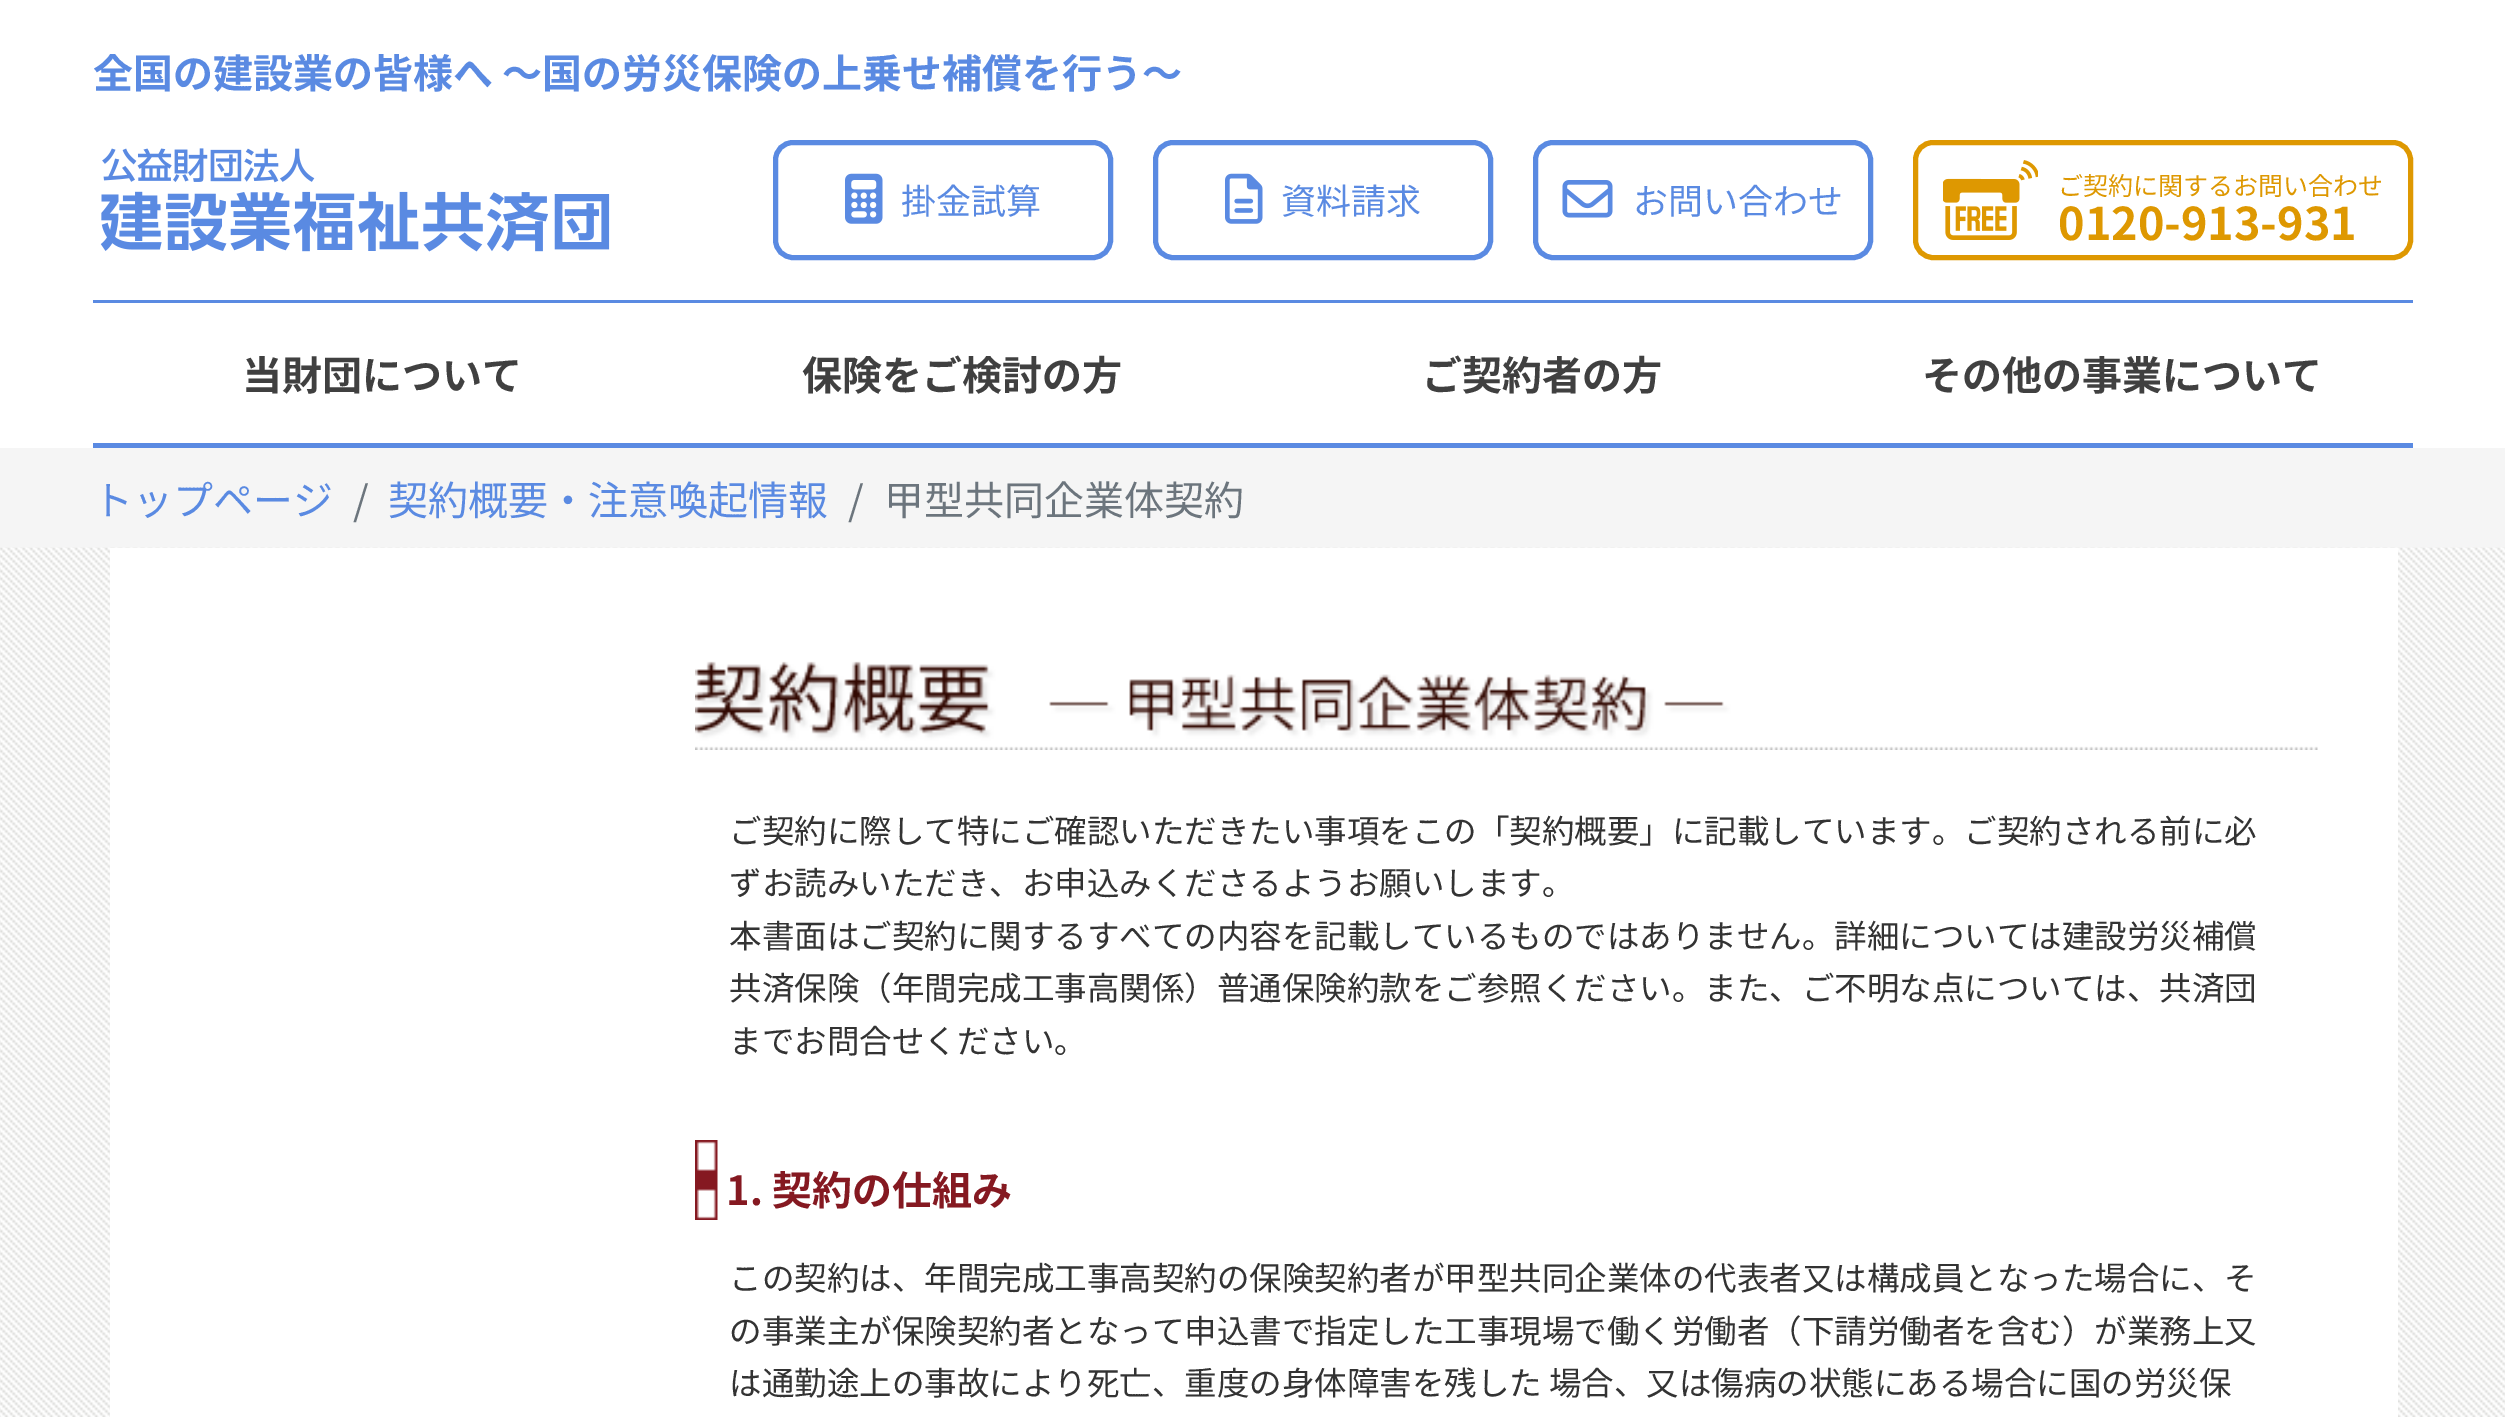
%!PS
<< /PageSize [2505 1417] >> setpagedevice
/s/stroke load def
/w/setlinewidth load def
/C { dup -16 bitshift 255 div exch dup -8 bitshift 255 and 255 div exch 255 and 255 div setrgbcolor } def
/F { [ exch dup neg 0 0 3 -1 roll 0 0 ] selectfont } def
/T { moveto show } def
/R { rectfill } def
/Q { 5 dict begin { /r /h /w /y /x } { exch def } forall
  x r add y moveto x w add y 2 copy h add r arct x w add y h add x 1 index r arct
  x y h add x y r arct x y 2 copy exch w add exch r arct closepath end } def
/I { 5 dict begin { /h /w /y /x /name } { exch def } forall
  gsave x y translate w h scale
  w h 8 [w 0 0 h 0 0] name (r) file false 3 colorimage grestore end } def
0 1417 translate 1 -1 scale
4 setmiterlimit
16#FFFFFF C
0 0 2505 1417 R
/NotoSansJP-Bold 40 F
16#5A8AE2 C
(全国の建設業の皆様へ 〜国の労災保険の上乗せ補償を行う〜) 93 88 T
93 300 2320 3 R
(1.rgb) 100 148 510 104 I
5 w
775.5 142.5 335 115 17.5 Q s
(2.rgb) 845 173 38 51 I
/NotoSansJP-Regular 35 F
(掛金試算) 901 214 T
1155.5 142.5 335 115 17.5 Q s
(3.rgb) 1225 173 38 51 I
(資料請求) 1281 214 T
1535.5 142.5 335 115 17.5 Q s
(4.rgb) 1562 180 51 38 I
(お問い合わせ) 1633 214 T
16#DE9801 C
1915.5 142.5 495 115 17.5 Q s
(5.rgb) 1943 160 95 80 I
/NotoSansJP-Regular 25 F
(ご契約に関するお問い合わせ) 2058 195 T
/NotoSansJP-Bold 45 F
(0120-913-931) 2058 240 T
16#5A8AE2 C
93 443 2320 5 R
/NotoSansJP-Bold 40 F
16#404040 C
(当財団について) 242 390 T
(保険をご検討の方) 802 390 T
(ご契約者の方) 1422 390 T
(その他の事業について) 1922 390 T
16#F5F5F5 C
0 448 2505 100 R
/NotoSansJP-Regular 40 F
16#5A8AE2 C
(トップページ) 93 515 T
16#6C757D C
(/) 353 515 T
16#5A8AE2 C
(契約概要・注意喚起情報) 388 515 T
16#6C757D C
(/) 848 515 T
(甲型共同企業体契約) 884 515 T
(6.rgb) 0 547 2505 870 I
16#FFFFFF C
110 548 2288 869 R
(7.rgb) 695 661 1623 89 I
/NotoSansJP-Regular 32.5 F
16#333333 C
(ご契約に際して特にご確認いただきたい事項をこの「契約概要」に記載しています。ご契約される前に必) 729 843 T
(ずお読みいただき、お申込みくださるようお願いします。) 729 895 T
(本書面はご契約に関するすべての内容を記載しているものではありません。詳細については建設労災補償) 729 948 T
(共済保険（年間完成工事高関係）普通保険約款をご参照ください。また、ご不明な点については、共済団) 729 1000 T
(までお問合せください。) 729 1053 T
(8.rgb) 695 1140 23 80 I
/NotoSansJP-Bold 40 F
16#851921 C
(1. 契約の仕組み) 726 1205 T
/NotoSansJP-Regular 32.5 F
16#333333 C
(この契約は、年間完成工事高契約の保険契約者が甲型共同企業体の代表者又は構成員となった場合に、そ) 729 1290 T
(の事業主が保険契約者となって申込書で指定した工事現場で働く労働者（下請労働者を含む）が業務上又) 729 1343 T
(は通勤途上の事故により死亡、重度の身体障害を残した 場合、又は傷病の状態にある場合に国の労災保) 729 1395 T
showpage
